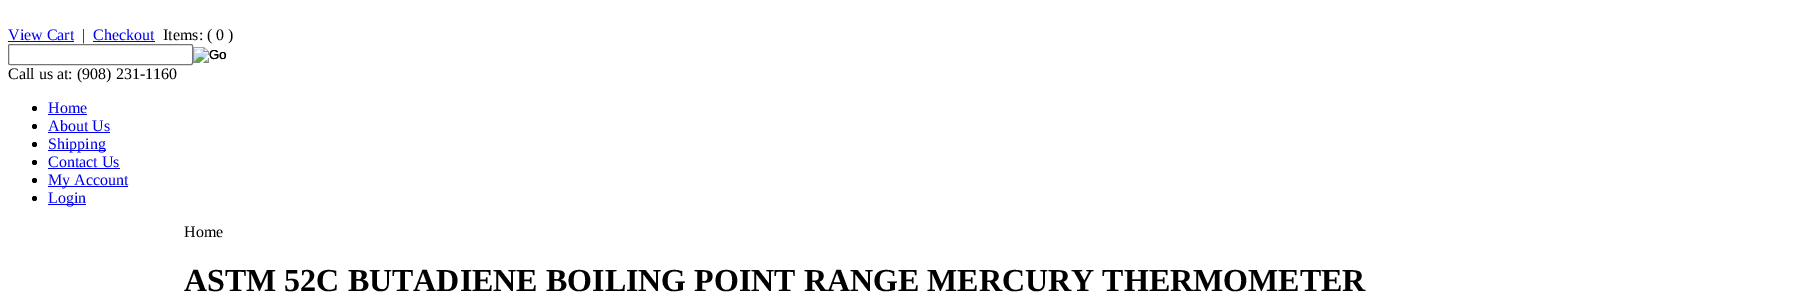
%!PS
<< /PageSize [1801 302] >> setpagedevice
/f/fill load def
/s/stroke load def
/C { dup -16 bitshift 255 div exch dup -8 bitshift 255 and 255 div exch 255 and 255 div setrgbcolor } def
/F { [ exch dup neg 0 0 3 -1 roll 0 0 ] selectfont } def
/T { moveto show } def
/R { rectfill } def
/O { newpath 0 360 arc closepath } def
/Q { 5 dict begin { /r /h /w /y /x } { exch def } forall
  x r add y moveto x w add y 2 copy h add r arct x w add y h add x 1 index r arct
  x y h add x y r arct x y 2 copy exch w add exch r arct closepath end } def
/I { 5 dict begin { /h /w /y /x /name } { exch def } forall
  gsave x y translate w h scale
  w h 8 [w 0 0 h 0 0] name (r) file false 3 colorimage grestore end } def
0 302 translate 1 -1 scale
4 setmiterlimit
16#FFFFFF C
0 0 1801 302 R
/LiberationSerif-Regular 16 F
16#0000EE C
(View Cart) 8 40 T
8 41 66 1 R
16#000000 C
(|) 82 40 T
16#0000EE C
(Checkout) 93 40 T
93 41 62 1 R
16#000000 C
(Items: \( 0 \)) 163 40 T
16#767676 C
8.5 44.5 184 20 1.5 Q s
(1.rgb) 193 47 34 16 I
/LiberationSans-Regular 13 F
16#000000 C
(Go) 209 59 T
/LiberationSerif-Regular 16 F
(Call us at: \(908\) 231-1160) 8 79 T
34.5 108.5 2.5 O f
16#0000EE C
(Home) 48 113 T
48 114 39 1 R
16#000000 C
34.5 126.5 2.5 O f
16#0000EE C
(About Us) 48 131 T
48 132 62 1 R
16#000000 C
34.5 144.5 2.5 O f
16#0000EE C
48 150 58 1 R
(Shipping) 48 149 T
16#000000 C
34.5 162.5 2.5 O f
16#0000EE C
(Contact Us) 48 167 T
48 168 72 1 R
16#000000 C
34.5 180.5 2.5 O f
16#0000EE C
48 186 80 1 R
(My Account) 48 185 T
16#000000 C
34.5 198.5 2.5 O f
16#0000EE C
48 204 38 1 R
(Login) 48 203 T
16#000000 C
(Home) 184 237 T
/LiberationSerif-Bold 32 F
(ASTM 52C BUTADIENE BOILING POINT RANGE MERCURY THERMOMETER) 184 291 T
showpage
